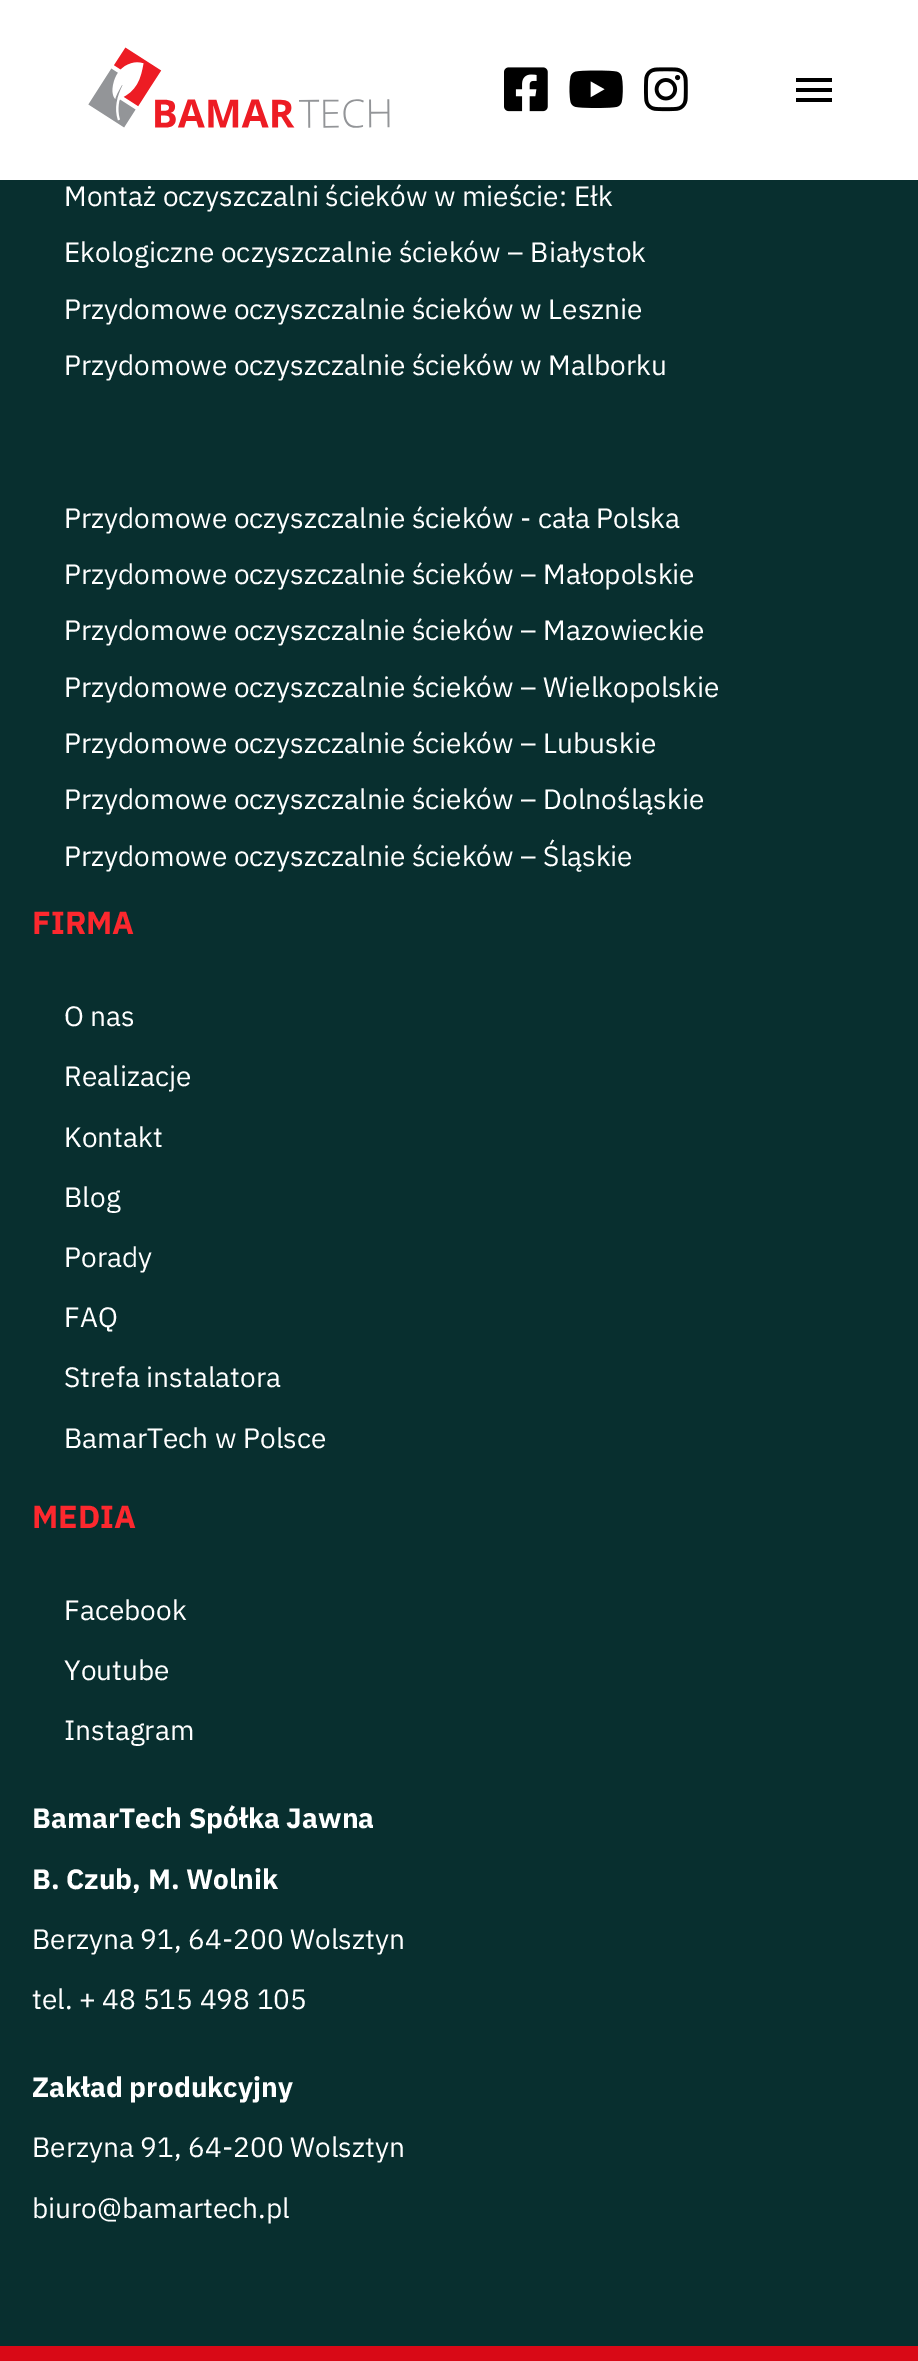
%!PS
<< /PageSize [918 2361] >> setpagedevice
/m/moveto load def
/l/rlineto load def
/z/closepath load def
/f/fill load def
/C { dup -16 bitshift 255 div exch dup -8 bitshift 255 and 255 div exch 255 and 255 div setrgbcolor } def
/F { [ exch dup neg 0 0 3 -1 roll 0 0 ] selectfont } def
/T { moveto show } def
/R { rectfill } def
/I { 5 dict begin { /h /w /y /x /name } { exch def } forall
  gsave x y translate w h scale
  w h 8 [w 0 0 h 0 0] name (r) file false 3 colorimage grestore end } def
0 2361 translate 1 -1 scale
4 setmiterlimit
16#082F2F C
0 0 918 2361 R
16#FFFFFF C
0 0 918 180 R
(1.rgb) 88 47 302 81 I
(2.rgb) 504 67 44 45 I
(3.rgb) 569 70 54 38 I
(4.rgb) 644 67 44 45 I
16#000000 C
796 102 m 36 0 l 0 -4 l -36 0 l z 796 92 m 36 0 l 0 -4 l -36 0 l z 796 78 m 0 4 l 36 0 l 0 -4 l z f
16#D90916 C
0 2346 918 15 R
/IBMPlexSans-Regular 28 F
16#FFFFFF C
(Montaż oczyszczalni ścieków w mieście: Ełk) 64 206 T
(Ekologiczne oczyszczalnie ścieków – Białystok) 64 262 T
(Przydomowe oczyszczalnie ścieków w Lesznie) 64 319 T
(Przydomowe oczyszczalnie ścieków w Malborku) 64 375 T
(Przydomowe oczyszczalnie ścieków - cała Polska) 64 528 T
(Przydomowe oczyszczalnie ścieków – Małopolskie) 64 584 T
(Przydomowe oczyszczalnie ścieków – Mazowieckie) 64 640 T
(Przydomowe oczyszczalnie ścieków – Wielkopolskie) 64 697 T
(Przydomowe oczyszczalnie ścieków – Lubuskie) 64 753 T
(Przydomowe oczyszczalnie ścieków – Dolnośląskie) 64 809 T
(Przydomowe oczyszczalnie ścieków – Śląskie) 64 866 T
/IBMPlexSans-Bold 32 F
16#FC282E C
(FIRMA) 32 934 T
/IBMPlexSans-Regular 28 F
16#FFFFFF C
(O nas) 64 1026 T
(Realizacje) 64 1086 T
(Kontakt) 64 1147 T
(Blog) 64 1207 T
(Porady) 64 1267 T
(FAQ) 64 1327 T
(Strefa instalatora) 64 1387 T
(BamarTech w Polsce) 64 1448 T
/IBMPlexSans-Bold 32 F
16#FC282E C
(MEDIA) 32 1528 T
/IBMPlexSans-Regular 28 F
16#FFFFFF C
(Facebook) 64 1620 T
(Youtube) 64 1680 T
(Instagram) 64 1740 T
/IBMPlexSans-Bold 28 F
(BamarTech Spółka Jawna) 32 1828 T
(B. Czub, M. Wolnik) 32 1889 T
/IBMPlexSans-Regular 28 F
(Berzyna 91, 64-200 Wolsztyn) 32 1949 T
(tel. + 48 515 498 105) 32 2009 T
/IBMPlexSans-Bold 28 F
(Zakład produkcyjny) 32 2097 T
/IBMPlexSans-Regular 28 F
(Berzyna 91, 64-200 Wolsztyn) 32 2157 T
(biuro@bamartech.pl) 32 2218 T
showpage
